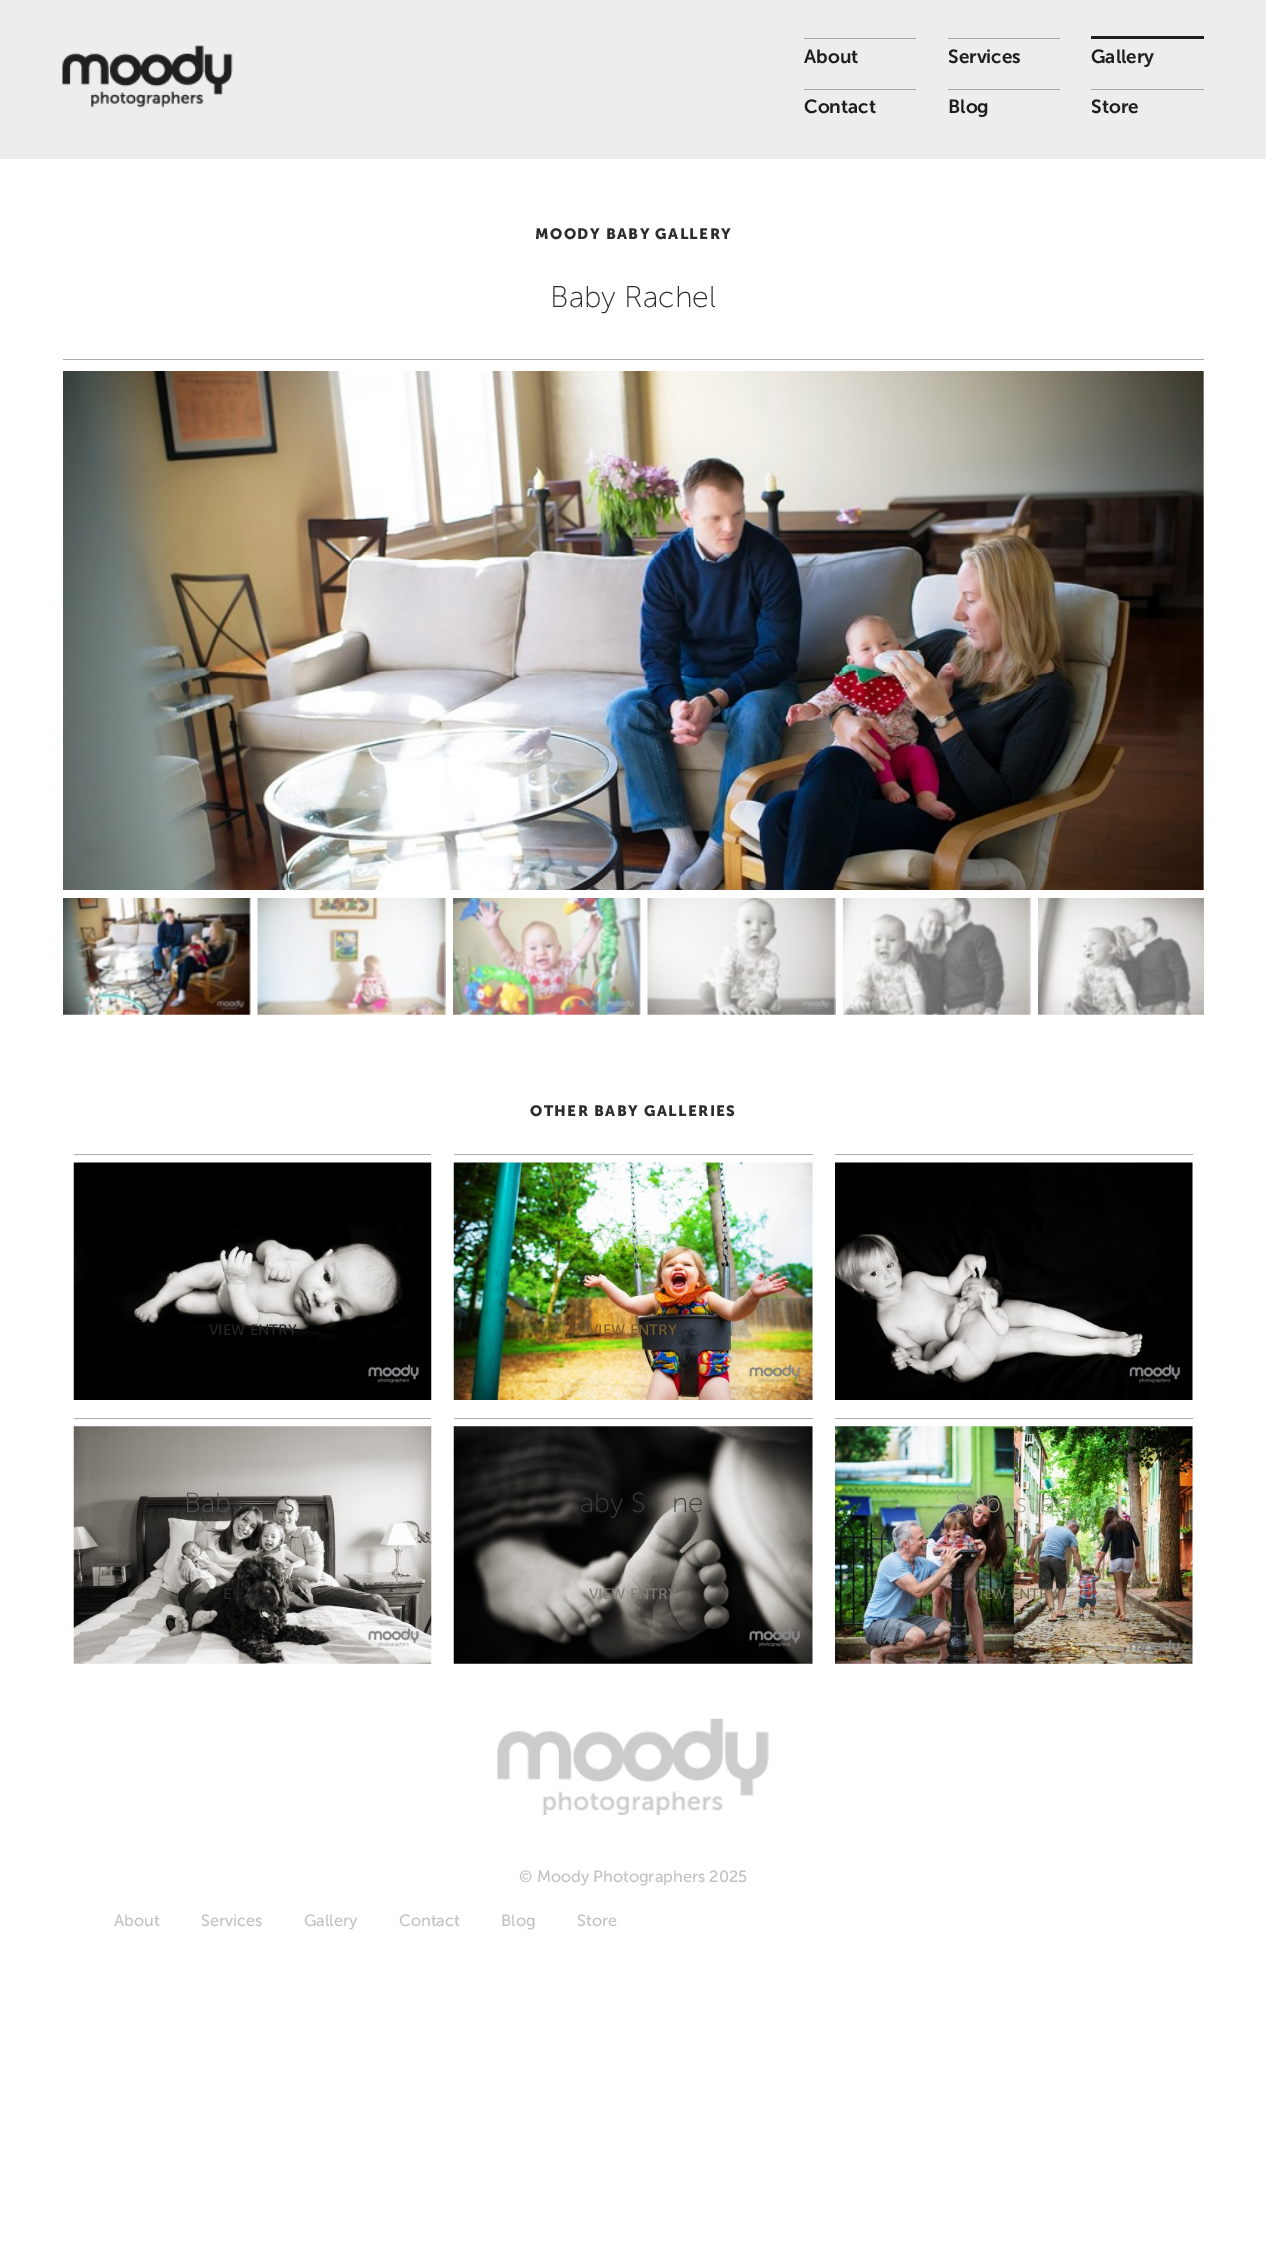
%!PS
<< /PageSize [1266 2249] >> setpagedevice
/m/moveto load def
/C { dup -16 bitshift 255 div exch dup -8 bitshift 255 and 255 div exch 255 and 255 div setrgbcolor } def
/F { [ exch dup neg 0 0 3 -1 roll 0 0 ] selectfont } def
/T { moveto show } def
/R { rectfill } def
/I { 5 dict begin { /h /w /y /x /name } { exch def } forall
  gsave x y translate w h scale
  w h 8 [w 0 0 h 0 0] name (r) file false 3 colorimage grestore end } def
0 2249 translate 1 -1 scale
4 setmiterlimit
16#FFFFFF C
0 0 1266 2249 R
16#EDEDED C
0 0 1266 159 R
(1.rgb) 62 45 171 63 I
16#A9A9A9 C
804 38 112 1 R
/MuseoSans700-SemiBold 19 F
16#1F1F1F C
(About) 804 63 T
16#A9A9A9 C
948 38 112 1 R
16#1F1F1F C
(Services) 948 63 T
1091 36 113 3 R
(Gallery) 1091 63 T
16#A9A9A9 C
804 89 112 1 R
16#1F1F1F C
(Contact) 804 113 T
16#A9A9A9 C
948 89 112 1 R
16#1F1F1F C
(Blog) 948 113 T
16#A9A9A9 C
1091 89 113 1 R
16#1F1F1F C
(Store) 1091 113 T
/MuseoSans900-Bold 15 F
16#2D2D2D C
535 239 m 1.4 0 (MOODY BABY GALLERY) ashow
/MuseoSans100-Light 30 F
(Baby Rachel) 550 307 T
16#ACACAC C
63 359 1141 1 R
(2.rgb) 63 371 1141 519 I
(3.rgb) 63 898 188 117 I
(4.rgb) 257 898 189 117 I
(5.rgb) 453 898 188 117 I
(6.rgb) 647 898 189 117 I
(7.rgb) 843 898 188 117 I
(8.rgb) 1038 898 166 117 I
/MuseoSans900-Bold 15 F
16#2D2D2D C
530 1116 m 1.4 0 (OTHER BABY GALLERIES) ashow
16#ACACAC C
74 1154 357 1 R
(9.rgb) 73 1162 359 238 I
/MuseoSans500-Regular 15 F
16#262524 C
(VIEW ENTRY) 209 1335 T
16#ACACAC C
454 1154 359 1 R
(10.rgb) 453 1162 360 238 I
/MuseoSans100-Light 27.5 F
16#C9E3BD C
(Vivian) 597 1248 T
/MuseoSans500-Regular 15 F
16#7D5E2F C
(VIEW ENTRY) 589 1335 T
16#ACACAC C
835 1154 358 1 R
(11.rgb) 835 1162 358 238 I
74 1418 357 1 R
(12.rgb) 73 1426 359 238 I
/MuseoSans100-Light 27.5 F
16#54524E C
(Bab) 184 1512 T
(s) 283 1512 T
/MuseoSans500-Regular 15 F
16#2D2D2D C
(E) 223 1599 T
16#ACACAC C
454 1418 359 1 R
(13.rgb) 453 1426 360 238 I
/MuseoSans100-Light 27.5 F
16#3F3D3A C
(aby S) 580 1512 T
(ne) 672 1512 T
/MuseoSans500-Regular 15 F
16#807D77 C
(VIEW ENTRY) 589 1599 T
16#ACACAC C
835 1418 358 1 R
(14.rgb) 835 1426 358 238 I
/MuseoSans100-Light 27.5 F
16#9BA684 C
(Sebastian) 955 1512 T
/MuseoSans500-Regular 15 F
16#726E55 C
(VIEW ENTRY) 970 1599 T
(15.rgb) 497 1718 272 97 I
/MuseoSans500-Regular 16.25 F
16#C2C2C2 C
(© Moody Photographers 2025) 519 1882 T
(About) 114 1926 T
(Services) 201 1926 T
(Gallery) 304 1926 T
(Contact) 399 1926 T
(Blog) 501 1926 T
(Store) 577 1926 T
showpage
